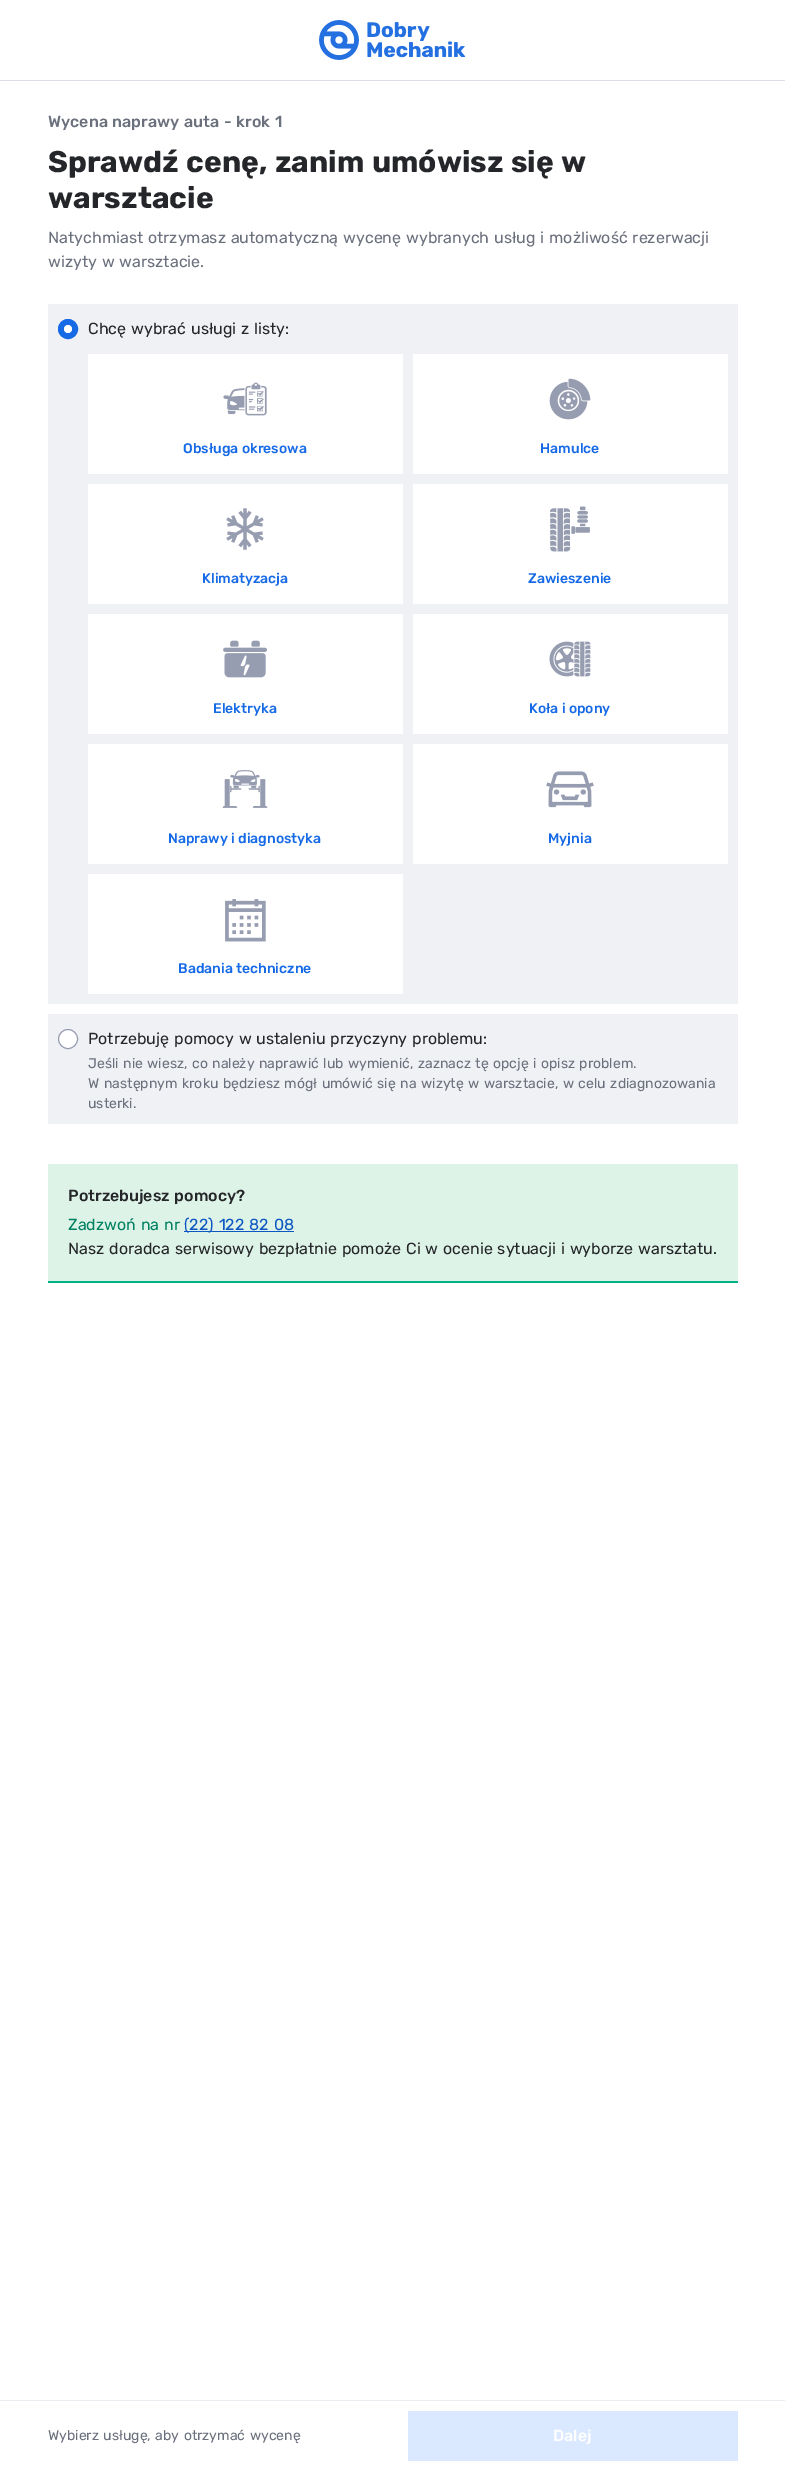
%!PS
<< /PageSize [785 2471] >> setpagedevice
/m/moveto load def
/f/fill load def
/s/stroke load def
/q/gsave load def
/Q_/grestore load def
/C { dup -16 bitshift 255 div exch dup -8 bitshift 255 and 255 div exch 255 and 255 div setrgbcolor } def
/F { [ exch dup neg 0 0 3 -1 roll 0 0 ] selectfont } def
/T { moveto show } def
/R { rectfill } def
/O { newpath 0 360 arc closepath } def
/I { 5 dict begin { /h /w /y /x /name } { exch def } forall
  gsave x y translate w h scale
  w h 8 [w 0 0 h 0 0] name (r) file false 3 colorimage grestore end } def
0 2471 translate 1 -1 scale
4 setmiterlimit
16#FFFFFF C
0 0 785 2471 R
16#DCE0E6 C
0 80 785 1 R
(1.rgb) 319 20 147 40 I
/Rubik-Medium 16 F
16#6B707D C
48 127 m 1 0 32 (Wycena naprawy auta - krok 1) widthshow
/Rubik-Bold 30 F
16#242629 C
48 172 m 1 0 32 (Sprawdź cenę, zanim umówisz się w) widthshow
(warsztacie) 48 208 T
/Rubik-Regular 16 F
16#6B707D C
48 243 m 1 0 32 (Natychmiast otrzymasz automatyczną wycenę wybranych usług i możliwość rezerwacji) widthshow
48 267 m 1 0 32 (wizyty w warsztacie.) widthshow
16#F0F1F5 C
48 304 690 700 R
16#176AE6 C
68 329 9.5 O q f Q_
s
16#242629 C
88 334 m 1 0 32 (Chcę wybrać usługi z listy:) widthshow
16#FFFFFF C
68 329 4 O f
88 354 315 120 R
(2.rgb) 223 382 44 34 I
/Rubik-Medium 14 F
16#176AE6 C
(Obsługa okresowa) 183 453 T
16#FFFFFF C
413 354 315 120 R
(3.rgb) 549 378 42 42 I
16#176AE6 C
(Hamulce) 540 453 T
16#FFFFFF C
88 484 315 120 R
(4.rgb) 226 508 38 42 I
16#176AE6 C
(Klimatyzacja) 202 583 T
16#FFFFFF C
413 484 315 120 R
(5.rgb) 550 506 40 46 I
16#176AE6 C
(Zawieszenie) 528 583 T
16#FFFFFF C
88 614 315 120 R
(6.rgb) 223 640 44 38 I
16#176AE6 C
(Elektryka) 213 713 T
16#FFFFFF C
413 614 315 120 R
(7.rgb) 549 641 42 36 I
16#176AE6 C
(Koła i opony) 529 713 T
16#FFFFFF C
88 744 315 120 R
(8.rgb) 222 770 46 38 I
16#176AE6 C
(Naprawy i diagnostyka) 168 843 T
16#FFFFFF C
413 744 315 120 R
(9.rgb) 546 771 48 37 I
16#176AE6 C
(Myjnia) 548 843 T
16#FFFFFF C
88 874 315 120 R
(10.rgb) 225 899 41 43 I
16#176AE6 C
(Badania techniczne) 178 973 T
16#F0F1F5 C
48 1014 690 110 R
16#FFFFFF C
68 1039 9.5 O q f Q_
16#979DB0 C
s
/Rubik-Regular 16 F
16#242629 C
88 1044 m 1 0 32 (Potrzebuję pomocy w ustaleniu przyczyny problemu:) widthshow
/Rubik-Regular 14 F
16#6B707D C
88 1068 m 1 0 32 (Jeśli nie wiesz, co należy naprawić lub wymienić, zaznacz tę opcję i opisz problem.) widthshow
88 1088 m 1.1 0 32 (W następnym kroku będziesz mógł umówić się na wizytę w warsztacie, w celu zdiagnozowania) widthshow
(usterki.) 88 1108 T
16#E9ECF1 C
0 2400 785 1 R
16#6B707D C
48 2440 m 1 0 32 (Wybierz usługę, aby otrzymać wycenę) widthshow
16#DAE9FF C
408 2411 330 50 R
/Rubik-Medium 16 F
16#FFFFFF C
(Dalej) 553 2441 T
16#DEF3E7 C
48 1164 690 117 R
16#00B286 C
48 1281 690 2 R
16#242629 C
68 1201 m 1 0 32 (Potrzebujesz pomocy?) widthshow
/Rubik-Regular 16 F
16#008161 C
68 1230 m 1 0 32 (Zadzwoń na nr) widthshow
16#0D57C3 C
184 1231 110 1 R
184 1230 m 1 0 32 (\(22\) 122 82 08) widthshow
16#242629 C
68 1254 m 1 0 32 (Nasz doradca serwisowy bezpłatnie pomoże Ci w ocenie sytuacji i wyborze warsztatu.) widthshow
showpage
